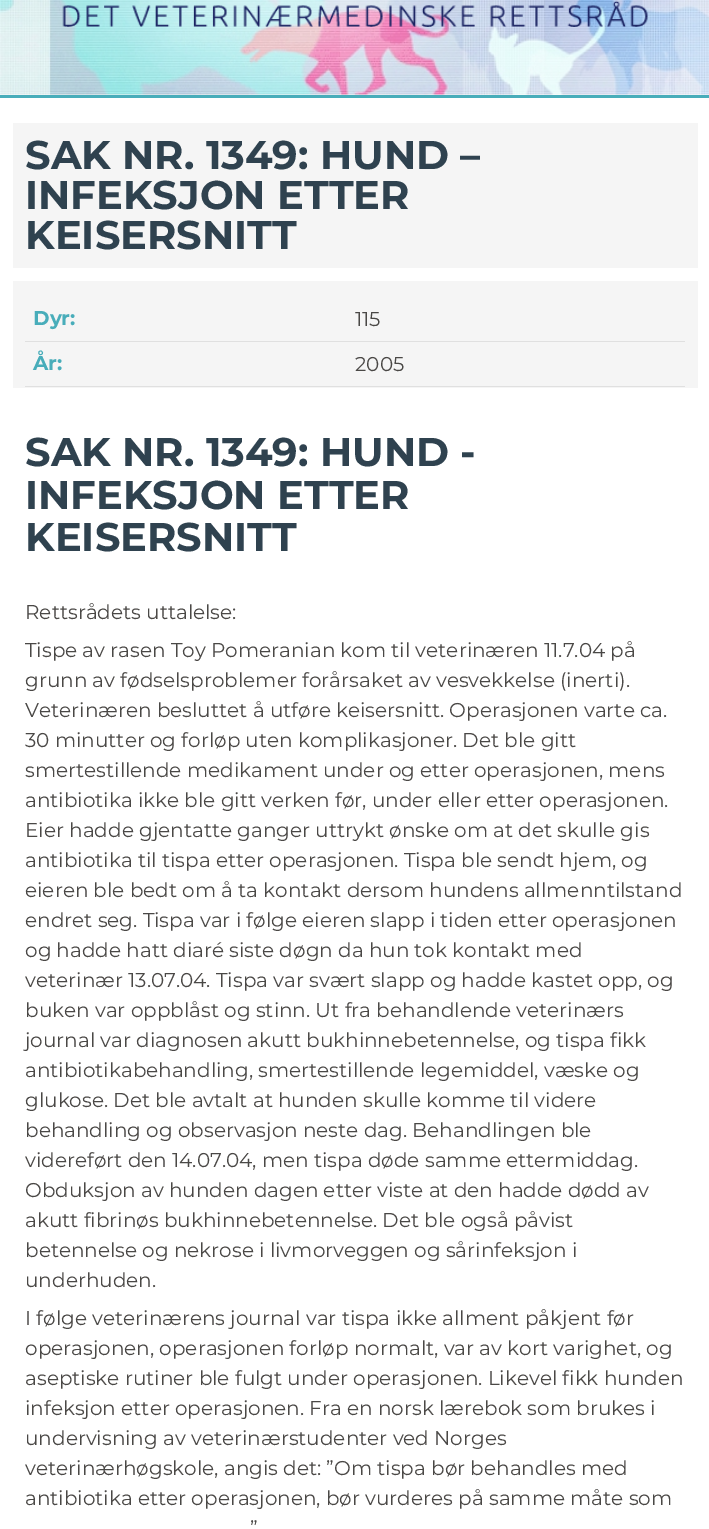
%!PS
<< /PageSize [709 1529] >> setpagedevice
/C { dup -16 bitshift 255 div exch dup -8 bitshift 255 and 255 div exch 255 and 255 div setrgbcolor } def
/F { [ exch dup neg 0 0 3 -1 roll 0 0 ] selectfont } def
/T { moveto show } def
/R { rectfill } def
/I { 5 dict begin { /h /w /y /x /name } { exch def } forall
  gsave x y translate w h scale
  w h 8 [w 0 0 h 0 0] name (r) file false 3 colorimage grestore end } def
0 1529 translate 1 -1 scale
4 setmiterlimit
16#FFFFFF C
0 0 709 1529 R
(1.rgb) 0 0 709 95 I
16#48ADBA C
0 95 709 3 R
(2.rgb) 62 0 586 27 I
16#F5F5F5 C
13 123 685 145 R
/Montserrat-Bold 40 F
16#2F424F C
(SAK NR. 1349: HUND –) 25 169 T
(INFEKSJON ETTER) 25 209 T
(KEISERSNITT) 25 249 T
16#F5F5F5 C
13 281 685 107 R
16#E0E0E0 C
25 341 660 1 R
/Montserrat-Bold 20 F
16#48ADBA C
(Dyr:) 33 325 T
/Montserrat-Regular 20 F
16#4A4846 C
(115) 355 326 T
16#E0E0E0 C
25 386 660 1 R
/Montserrat-Bold 20 F
16#48ADBA C
(År:) 33 370 T
/Montserrat-Regular 20 F
16#4A4846 C
(2005) 355 371 T
/Montserrat-Bold 40 F
16#2F424F C
(SAK NR. 1349: HUND -) 25 466 T
(INFEKSJON ETTER) 25 509 T
(KEISERSNITT) 25 551 T
/Montserrat-Regular 20 F
16#4A4846 C
(Rettsrådets uttalelse:) 25 619 T
(Tispe av rasen Toy Pomeranian kom til veterinæren 11.7.04 på) 25 657 T
(grunn av fødselsproblemer forårsaket av vesvekkelse \(inerti\).) 25 687 T
(Veterinæren besluttet å utføre keisersnitt. Operasjonen varte ca.) 25 717 T
(30 minutter og forløp uten komplikasjoner. Det ble gitt) 25 747 T
(smertestillende medikament under og etter operasjonen, mens) 25 777 T
(antibiotika ikke ble gitt verken før, under eller etter operasjonen.) 25 807 T
(Eier hadde gjentatte ganger uttrykt ønske om at det skulle gis) 25 837 T
(antibiotika til tispa etter operasjonen. Tispa ble sendt hjem, og) 25 867 T
(eieren ble bedt om å ta kontakt dersom hundens allmenntilstand) 25 897 T
(endret seg. Tispa var i følge eieren slapp i tiden etter operasjonen) 25 927 T
(og hadde hatt diaré siste døgn da hun tok kontakt med) 25 957 T
(veterinær 13.07.04. Tispa var svært slapp og hadde kastet opp, og) 25 987 T
(buken var oppblåst og stinn. Ut fra behandlende veterinærs) 25 1017 T
(journal var diagnosen akutt bukhinnebetennelse, og tispa fikk) 25 1047 T
(antibiotikabehandling, smertestillende legemiddel, væske og) 25 1077 T
(glukose. Det ble avtalt at hunden skulle komme til videre) 25 1107 T
(behandling og observasjon neste dag. Behandlingen ble) 25 1137 T
(videreført den 14.07.04, men tispa døde samme ettermiddag.) 25 1167 T
(Obduksjon av hunden dagen etter viste at den hadde dødd av) 25 1197 T
(akutt fibrinøs bukhinnebetennelse. Det ble også påvist) 25 1227 T
(betennelse og nekrose i livmorveggen og sårinfeksjon i) 25 1257 T
(underhuden.) 25 1287 T
(I følge veterinærens journal var tispa ikke allment påkjent før) 25 1325 T
(operasjonen, operasjonen forløp normalt, var av kort varighet, og) 25 1355 T
(aseptiske rutiner ble fulgt under operasjonen. Likevel fikk hunden) 25 1385 T
(infeksjon etter operasjonen. Fra en norsk lærebok som brukes i) 25 1415 T
(undervisning av veterinærstudenter ved Norges) 25 1445 T
(veterinærhøgskole, angis det: ”Om tispa bør behandles med) 25 1475 T
(antibiotika etter operasjonen, bør vurderes på samme måte som) 25 1505 T
(”) 250 1535 T
showpage
